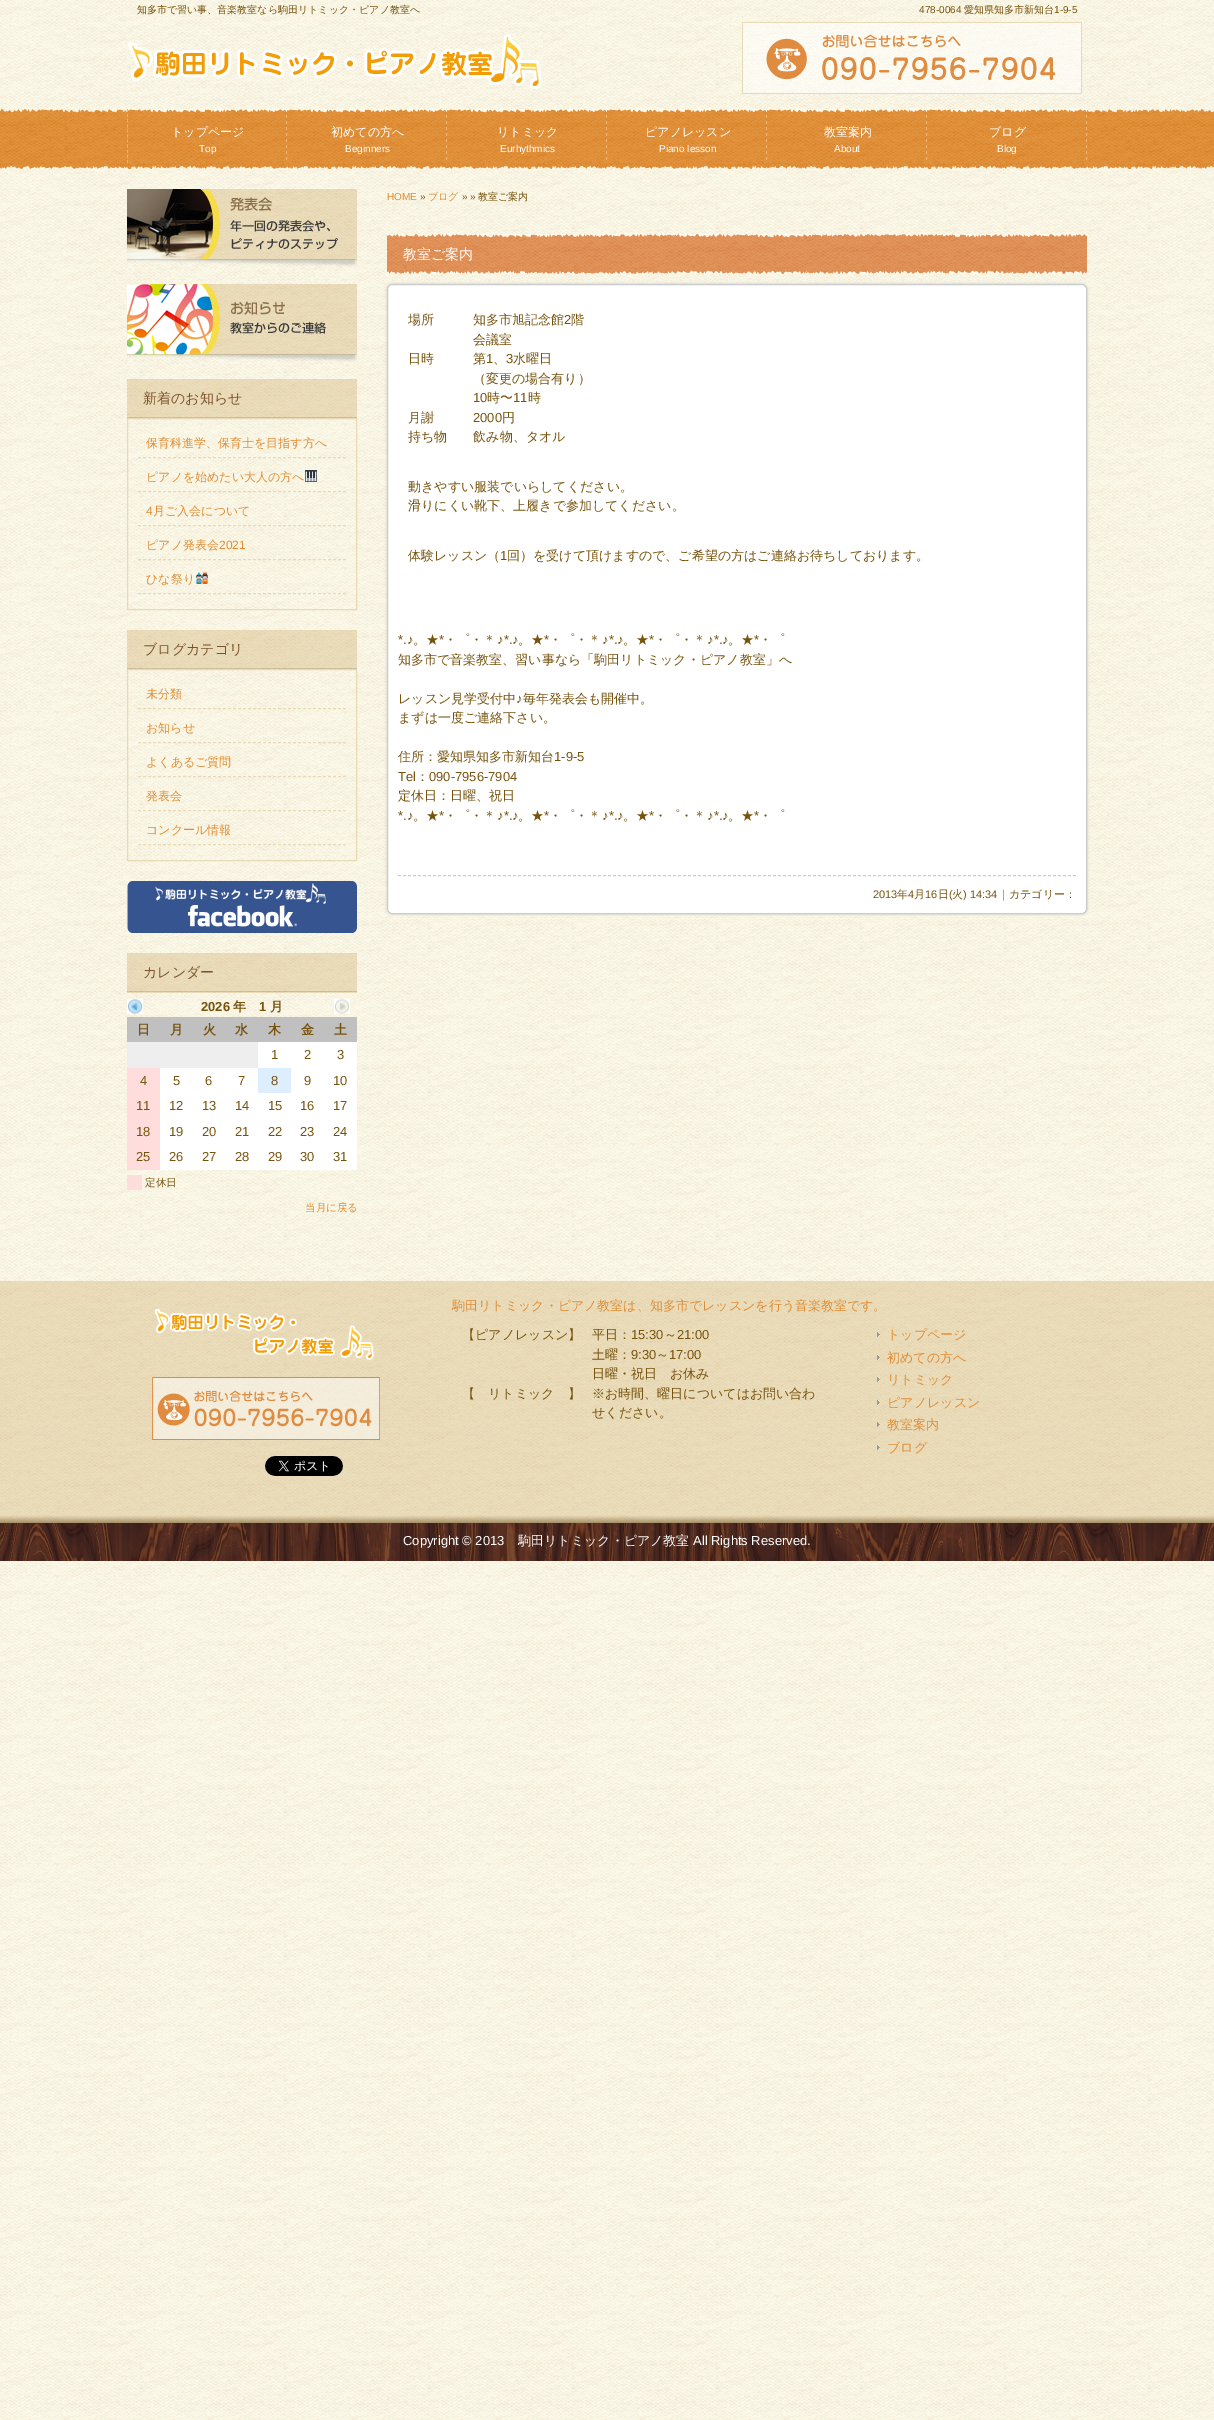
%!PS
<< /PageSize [1214 2420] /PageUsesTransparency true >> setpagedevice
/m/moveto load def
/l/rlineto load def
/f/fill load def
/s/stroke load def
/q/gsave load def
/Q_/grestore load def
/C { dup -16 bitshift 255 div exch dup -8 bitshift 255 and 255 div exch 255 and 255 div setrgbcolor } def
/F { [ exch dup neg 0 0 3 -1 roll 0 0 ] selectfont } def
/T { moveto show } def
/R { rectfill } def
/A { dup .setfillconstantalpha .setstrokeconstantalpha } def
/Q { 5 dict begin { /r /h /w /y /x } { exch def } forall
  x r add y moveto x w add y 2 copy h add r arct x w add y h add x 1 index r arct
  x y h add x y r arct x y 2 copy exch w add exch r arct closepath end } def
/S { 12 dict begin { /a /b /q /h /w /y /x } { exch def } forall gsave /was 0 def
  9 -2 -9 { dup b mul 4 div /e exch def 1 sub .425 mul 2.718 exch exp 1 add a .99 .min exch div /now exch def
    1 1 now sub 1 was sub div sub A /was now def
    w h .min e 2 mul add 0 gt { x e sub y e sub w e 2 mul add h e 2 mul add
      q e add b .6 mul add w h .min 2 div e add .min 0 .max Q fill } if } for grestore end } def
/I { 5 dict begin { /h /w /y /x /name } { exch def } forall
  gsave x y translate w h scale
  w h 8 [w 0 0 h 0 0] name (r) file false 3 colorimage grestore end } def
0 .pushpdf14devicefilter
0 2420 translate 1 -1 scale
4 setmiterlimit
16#FFFFFF C
0 0 1214 2420 R
(1.rgb) 0 0 1214 2420 I
/WenQuanYiZenHei-Medium 10 F
16#76520D C
(知多市で習い事、音楽教室なら駒田リトミック・ピアノ教室へ) 137 13 T
/LiberationSans-Regular 10 F
(478-0064) 919 13 T
/WenQuanYiZenHei-Medium 10 F
(愛知県知多市新知台) 964 13 T
/LiberationSans-Regular 10 F
(1-9-5) 1054 13 T
(2.rgb) 127 32 416 57 I
(3.rgb) 742 22 340 72 I
(4.rgb) 0 109 1214 60 I
16#DCABB3 C
[3 2.1] 0 setdash
127.5 109 m 0 54 l s
(5.rgb) 128 109 160 54 I
/WenQuanYiZenHei-Medium 12 F
16#FFFFFF C
(トップページ) 171 136 T
/LiberationSans-Regular 10 F
(Top) 199 152 T
(5.rgb) 288 109 160 54 I
/WenQuanYiZenHei-Medium 12 F
(初めての方へ) 331 136 T
/LiberationSans-Regular 10 F
(Beginners) 345 152 T
(5.rgb) 448 109 160 54 I
/WenQuanYiZenHei-Medium 12 F
(リトミック) 497 136 T
/LiberationSans-Regular 10 F
(Eurhythmics) 500 152 T
(5.rgb) 608 109 160 54 I
/WenQuanYiZenHei-Medium 12 F
(ピアノレッスン) 645 136 T
/LiberationSans-Regular 10 F
(Piano lesson) 659 152 T
(5.rgb) 768 109 160 54 I
/WenQuanYiZenHei-Medium 12 F
(教室案内) 824 136 T
/LiberationSans-Regular 10 F
(About) 834 152 T
(5.rgb) 928 109 160 54 I
/WenQuanYiZenHei-Medium 12 F
(ブログ) 989 136 T
/LiberationSans-Regular 10 F
(Blog) 997 152 T
(6.rgb) 127 189 230 80 I
(7.rgb) 127 284 230 80 I
(8.rgb) 127 379 230 39 I
/WenQuanYiZenHei-Medium 14 F
16#7A522B C
(新着のお知らせ) 143 403 T
16#E9DAB6 C
[] 0 setdash
127.5 418.5 229 191 rectstroke
[3 2] 0 setdash
138 457.5 m 208 0 l s
/WenQuanYiZenHei-Medium 12 F
16#DF8C34 C
(保育科進学、保育士を目指す方へ) 146 447 T
16#E9DAB6 C
138 491.5 m 208 0 l s
16#DF8C34 C
(ピアノを始めたい大人の方へ) 146 481 T
(9.rgb) 305 470 12 12 I
16#E9DAB6 C
138 525.5 m 208 0 l s
/LiberationSans-Regular 12 F
16#DF8C34 C
(4) 146 515 T
/WenQuanYiZenHei-Medium 12 F
(月ご入会について) 153 515 T
16#E9DAB6 C
138 559.5 m 208 0 l s
16#DF8C34 C
(ピアノ発表会) 146 549 T
/LiberationSans-Regular 12 F
(2021) 219 549 T
16#E9DAB6 C
138 593.5 m 208 0 l s
/WenQuanYiZenHei-Medium 12 F
16#DF8C34 C
(ひな祭り) 146 583 T
(10.rgb) 196 572 12 12 I
(8.rgb) 127 630 230 39 I
/WenQuanYiZenHei-Medium 14 F
16#7A522B C
(ブログカテゴリ) 143 654 T
16#E9DAB6 C
[] 0 setdash
127.5 669.5 229 191 rectstroke
[3 2] 0 setdash
138 708.5 m 208 0 l s
/WenQuanYiZenHei-Medium 12 F
16#DF8C34 C
(未分類) 146 698 T
16#E9DAB6 C
138 742.5 m 208 0 l s
16#DF8C34 C
(お知らせ) 146 732 T
16#E9DAB6 C
138 776.5 m 208 0 l s
16#DF8C34 C
(よくあるご質問) 146 766 T
16#E9DAB6 C
138 810.5 m 208 0 l s
16#DF8C34 C
(発表会) 146 800 T
16#E9DAB6 C
138 844.5 m 208 0 l s
16#DF8C34 C
(コンクール情報) 146 834 T
(11.rgb) 127 881 230 52 I
(12.rgb) 127 953 230 40 I
/WenQuanYiZenHei-Medium 14 F
16#7A522B C
(カレンダー) 143 977 T
(13.rgb) 127 999 16 15 I
/LiberationSans-Bold 13 F
16#76520D C
(2026) 201 1011 T
/WenQuanYiZenHei-Bold 13 F
(年) 233 1011 T
/LiberationSans-Bold 13 F
(1) 259 1011 T
/WenQuanYiZenHei-Bold 13 F
(月) 270 1011 T
(14.rgb) 334 999 16 15 I
16#C0C0C0 C
127 1017 230 25 R
16#76520D C
(日) 137 1034 T
(月) 170 1034 T
(火) 203 1034 T
(水) 235 1034 T
(木) 268 1034 T
(金) 301 1034 T
(土) 334 1034 T
16#EEEEEE C
127 1042 131 26 R
16#FFFFFF C
258 1042 99 26 R
/LiberationSans-Regular 13 F
16#76520D C
(1) 271 1059 T
(2) 304 1059 T
(3) 337 1059 T
16#FFDDDD C
127 1068 33 102 R
16#76520D C
(4) 140 1085 T
16#FFFFFF C
160 1068 98 25 R
16#76520D C
(5) 173 1085 T
(6) 205 1085 T
(7) 238 1085 T
16#DDEEFF C
258 1068 33 25 R
16#76520D C
(8) 271 1085 T
16#FFFFFF C
291 1068 66 25 R
16#76520D C
(9) 304 1085 T
(10) 333 1085 T
(11) 136 1110 T
16#FFFFFF C
160 1093 197 26 R
16#76520D C
(12) 169 1110 T
(13) 202 1110 T
(14) 235 1110 T
(15) 268 1110 T
(16) 300 1110 T
(17) 333 1110 T
(18) 136 1136 T
16#FFFFFF C
160 1119 197 25 R
16#76520D C
(19) 169 1136 T
(20) 202 1136 T
(21) 235 1136 T
(22) 268 1136 T
(23) 300 1136 T
(24) 333 1136 T
(25) 136 1161 T
16#FFFFFF C
160 1144 197 26 R
16#76520D C
(26) 169 1161 T
(27) 202 1161 T
(28) 235 1161 T
(29) 268 1161 T
(30) 300 1161 T
(31) 333 1161 T
16#FFDDDD C
127 1175 15 15 R
/WenQuanYiZenHei-Medium 10.5 F
16#76520D C
(定休日) 145 1186 T
16#DF8C34 C
(当月に戻る) 305 1211 T
/LiberationSans-Regular 10 F
(HOME) 387 200 T
16#76520D C
(») 420 200 T
/WenQuanYiZenHei-Medium 10 F
16#DF8C34 C
(ブログ) 428 200 T
/LiberationSans-Regular 10 F
16#76520D C
(» ») 462 200 T
/WenQuanYiZenHei-Medium 10 F
(教室ご案内) 478 200 T
(15.rgb) 387 234 700 40 I
/WenQuanYiZenHei-Medium 14 F
16#FFFFFF C
(教室ご案内) 403 259 T
16#CCCCCC C
387 284 700 630 5 1.5 1 S
16#FFFFFF C
387.5 284.5 699 629 4.5 Q q f Q_
16#CCCCCC C
[] 0 setdash
s
[3 2] 0 setdash
398 875.5 m 678 0 l s
/WenQuanYiZenHei-Medium 13 F
16#76520D C
(場所　　　知多市旭記念館) 408 324 T
/LiberationSans-Regular 13 F
(2) 564 324 T
/WenQuanYiZenHei-Medium 13 F
(階) 571 324 T
(会議室) 473 344 T
(日時　　　第) 408 363 T
/LiberationSans-Regular 13 F
(1) 486 363 T
(3) 506 363 T
/WenQuanYiZenHei-Medium 13 F
(水曜日) 513 363 T
(、) 493 363 T
(（変更の場合有り）) 473 383 T
/LiberationSans-Regular 13 F
(10) 473 402 T
/WenQuanYiZenHei-Medium 13 F
(時〜) 487 402 T
/LiberationSans-Regular 13 F
(11) 513 402 T
/WenQuanYiZenHei-Medium 13 F
(時) 528 402 T
(月謝) 408 422 T
/LiberationSans-Regular 13 F
(2000) 473 422 T
/WenQuanYiZenHei-Medium 13 F
(円) 502 422 T
(持ち物　　飲み物、タオル) 408 441 T
(動きやすい服装でいらしてください。) 408 491 T
(滑りにくい靴下、上履きで参加してください。) 408 510 T
(体験レッスン（) 408 560 T
/LiberationSans-Regular 13 F
(1) 500 560 T
/WenQuanYiZenHei-Medium 13 F
(回）を受けて頂けますので、ご希望の方はご連絡お待ちしております。) 507 560 T
/LiberationSans-Regular 13 F
(*.♪) 398 644 T
/WenQuanYiZenHei-Medium 13 F
(。★) 413 644 T
/LiberationSans-Regular 13 F
(*) 439 644 T
/WenQuanYiZenHei-Medium 13 F
(・゜・＊) 444 644 T
/LiberationSans-Regular 13 F
(♪*.♪) 497 644 T
/WenQuanYiZenHei-Medium 13 F
(。★) 518 644 T
/LiberationSans-Regular 13 F
(*) 544 644 T
/WenQuanYiZenHei-Medium 13 F
(・゜・＊) 549 644 T
/LiberationSans-Regular 13 F
(♪*.♪) 602 644 T
/WenQuanYiZenHei-Medium 13 F
(。★) 623 644 T
/LiberationSans-Regular 13 F
(*) 649 644 T
/WenQuanYiZenHei-Medium 13 F
(・゜・＊) 654 644 T
/LiberationSans-Regular 13 F
(♪*.♪) 707 644 T
/WenQuanYiZenHei-Medium 13 F
(。★) 728 644 T
/LiberationSans-Regular 13 F
(*) 754 644 T
/WenQuanYiZenHei-Medium 13 F
(・゜) 759 644 T
(知多市で音楽教室、習い事なら「駒田リトミック・ピアノ教室」へ) 398 664 T
(レッスン見学受付中) 398 703 T
/LiberationSans-Regular 13 F
(♪) 516 703 T
/WenQuanYiZenHei-Medium 13 F
(毎年発表会も開催中。) 523 703 T
(まずは一度ご連絡下さい。) 398 722 T
(住所：愛知県知多市新知台) 398 761 T
/LiberationSans-Regular 13 F
(1-9-5) 554 761 T
(Tel) 398 781 T
/WenQuanYiZenHei-Medium 13 F
(：) 416 781 T
/LiberationSans-Regular 13 F
(090-7956-7904) 429 781 T
/WenQuanYiZenHei-Medium 13 F
(定休日：日曜、祝日) 398 800 T
/LiberationSans-Regular 13 F
(*.♪) 398 820 T
/WenQuanYiZenHei-Medium 13 F
(。★) 413 820 T
/LiberationSans-Regular 13 F
(*) 439 820 T
/WenQuanYiZenHei-Medium 13 F
(・゜・＊) 444 820 T
/LiberationSans-Regular 13 F
(♪*.♪) 497 820 T
/WenQuanYiZenHei-Medium 13 F
(。★) 518 820 T
/LiberationSans-Regular 13 F
(*) 544 820 T
/WenQuanYiZenHei-Medium 13 F
(・゜・＊) 549 820 T
/LiberationSans-Regular 13 F
(♪*.♪) 602 820 T
/WenQuanYiZenHei-Medium 13 F
(。★) 623 820 T
/LiberationSans-Regular 13 F
(*) 649 820 T
/WenQuanYiZenHei-Medium 13 F
(・゜・＊) 654 820 T
/LiberationSans-Regular 13 F
(♪*.♪) 707 820 T
/WenQuanYiZenHei-Medium 13 F
(。★) 728 820 T
/LiberationSans-Regular 13 F
(*) 754 820 T
/WenQuanYiZenHei-Medium 13 F
(・゜) 759 820 T
/LiberationSans-Regular 11 F
(2013) 873 898 T
/WenQuanYiZenHei-Medium 11 F
(年) 897 898 T
/LiberationSans-Regular 11 F
(4) 908 898 T
/WenQuanYiZenHei-Medium 11 F
(月) 914 898 T
/LiberationSans-Regular 11 F
(16) 925 898 T
/WenQuanYiZenHei-Medium 11 F
(日) 938 898 T
/LiberationSans-Regular 11 F
(\() 949 898 T
/WenQuanYiZenHei-Medium 11 F
(火) 952 898 T
/LiberationSans-Regular 11 F
(\) 14:34) 963 898 T
/WenQuanYiZenHei-Medium 11 F
(｜カテゴリー：) 998 898 T
(16.rgb) 0 1281 1214 230 I
(17.rgb) 152 1306 223 56 I
(18.rgb) 152 1377 228 63 I
(19.rgb) 265 1456 78 20 I
/WenQuanYiZenHei-Medium 13 F
16#DF8C34 C
(駒田リトミック・ピアノ教室は、知多市でレッスンを行う音楽教室です。) 452 1310 T
16#76520D C
(【ピアノレッスン】) 462 1339 T
(平日：) 592 1339 T
/LiberationSans-Regular 13 F
(15:30) 631 1339 T
/WenQuanYiZenHei-Medium 13 F
(～) 664 1339 T
/LiberationSans-Regular 13 F
(21:00) 677 1339 T
/WenQuanYiZenHei-Medium 13 F
(土曜：) 592 1359 T
/LiberationSans-Regular 13 F
(9:30) 631 1359 T
/WenQuanYiZenHei-Medium 13 F
(～) 656 1359 T
/LiberationSans-Regular 13 F
(17:00) 669 1359 T
/WenQuanYiZenHei-Medium 13 F
(日曜・祝日　お休み) 592 1378 T
(【　リトミック　】) 462 1398 T
(※お時間、曜日についてはお問い合わ) 592 1398 T
(せください。) 592 1417 T
(20.rgb) 877 1332 3 5 I
16#DF8C34 C
(トップページ) 887 1339 T
(20.rgb) 877 1355 3 5 I
(初めての方へ) 887 1362 T
(20.rgb) 877 1377 3 5 I
(リトミック) 887 1384 T
(20.rgb) 877 1400 3 5 I
(ピアノレッスン) 887 1407 T
(20.rgb) 877 1422 3 5 I
(教室案内) 887 1429 T
(20.rgb) 877 1445 3 5 I
(ブログ) 887 1452 T
(21.rgb) 0 1511 1214 50 I
/LiberationSans-Regular 13 F
16#FFFFFF C
(Copyright © 2013) 403 1545 T
/WenQuanYiZenHei-Medium 13 F
(駒田リトミック・ピアノ教室) 518 1545 T
/LiberationSans-Regular 13 F
(All Rights Reserved.) 693 1545 T
.poppdf14devicefilter showpage
